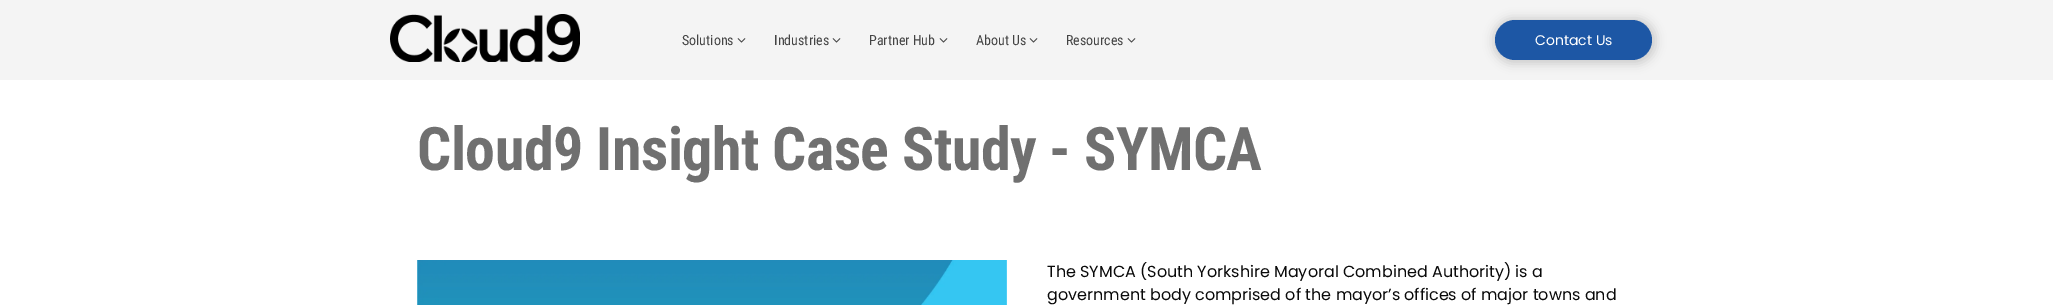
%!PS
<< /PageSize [2053 305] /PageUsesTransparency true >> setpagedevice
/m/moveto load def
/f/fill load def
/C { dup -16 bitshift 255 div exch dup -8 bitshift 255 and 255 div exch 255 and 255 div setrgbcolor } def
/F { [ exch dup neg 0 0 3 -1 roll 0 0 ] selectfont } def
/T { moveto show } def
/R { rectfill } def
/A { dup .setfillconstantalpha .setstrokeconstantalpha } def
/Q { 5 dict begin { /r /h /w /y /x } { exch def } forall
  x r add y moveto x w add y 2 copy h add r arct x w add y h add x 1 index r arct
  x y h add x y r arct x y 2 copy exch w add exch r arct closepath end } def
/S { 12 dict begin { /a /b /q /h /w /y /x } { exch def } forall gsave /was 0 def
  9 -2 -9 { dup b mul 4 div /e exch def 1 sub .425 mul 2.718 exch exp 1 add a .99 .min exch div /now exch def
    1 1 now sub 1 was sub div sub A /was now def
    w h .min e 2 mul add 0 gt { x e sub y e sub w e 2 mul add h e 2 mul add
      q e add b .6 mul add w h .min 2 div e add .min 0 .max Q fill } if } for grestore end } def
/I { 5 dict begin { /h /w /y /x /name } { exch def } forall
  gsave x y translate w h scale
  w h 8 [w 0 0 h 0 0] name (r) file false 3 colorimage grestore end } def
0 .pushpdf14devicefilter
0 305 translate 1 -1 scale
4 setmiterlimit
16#FFFFFF C
0 0 2053 305 R
16#F4F4F4 C
0 0 2053 80 R
(1.rgb) 390 14 190 48 I
/RobotoCondensed-Regular 14 F
16#444444 C
(Solutions) 682 45 T
(2.rgb) 737 38 9 5 I
(Industries) 774 45 T
(2.rgb) 832 38 9 5 I
(Partner Hub) 869 45 T
(2.rgb) 939 38 9 5 I
(About Us) 976 45 T
(2.rgb) 1029 38 9 5 I
(Resources) 1066 45 T
(2.rgb) 1127 38 9 5 I
16#000000 C
1493 18 163 46 23 5 .16 S
16#1D57A5 C
1495 20 157 40 20 Q f
/Poppins-Regular 14 F
16#FFFFFF C
(Contact Us) 1535 45 T
/RobotoCondensed-Bold 60 F
16#707070 C
417 170 m -.5 0 (Cloud9 Insight Case Study - SYMCA) ashow
(3.rgb) 417 260 590 45 I
/Poppins-Regular 16 F
16#0A0A0A C
(The SYMCA \(South Yorkshire Mayoral Combined Authority\) is a) 1047 277 T
(government body comprised of the mayor’s offices of major towns and) 1047 300 T
.poppdf14devicefilter showpage
